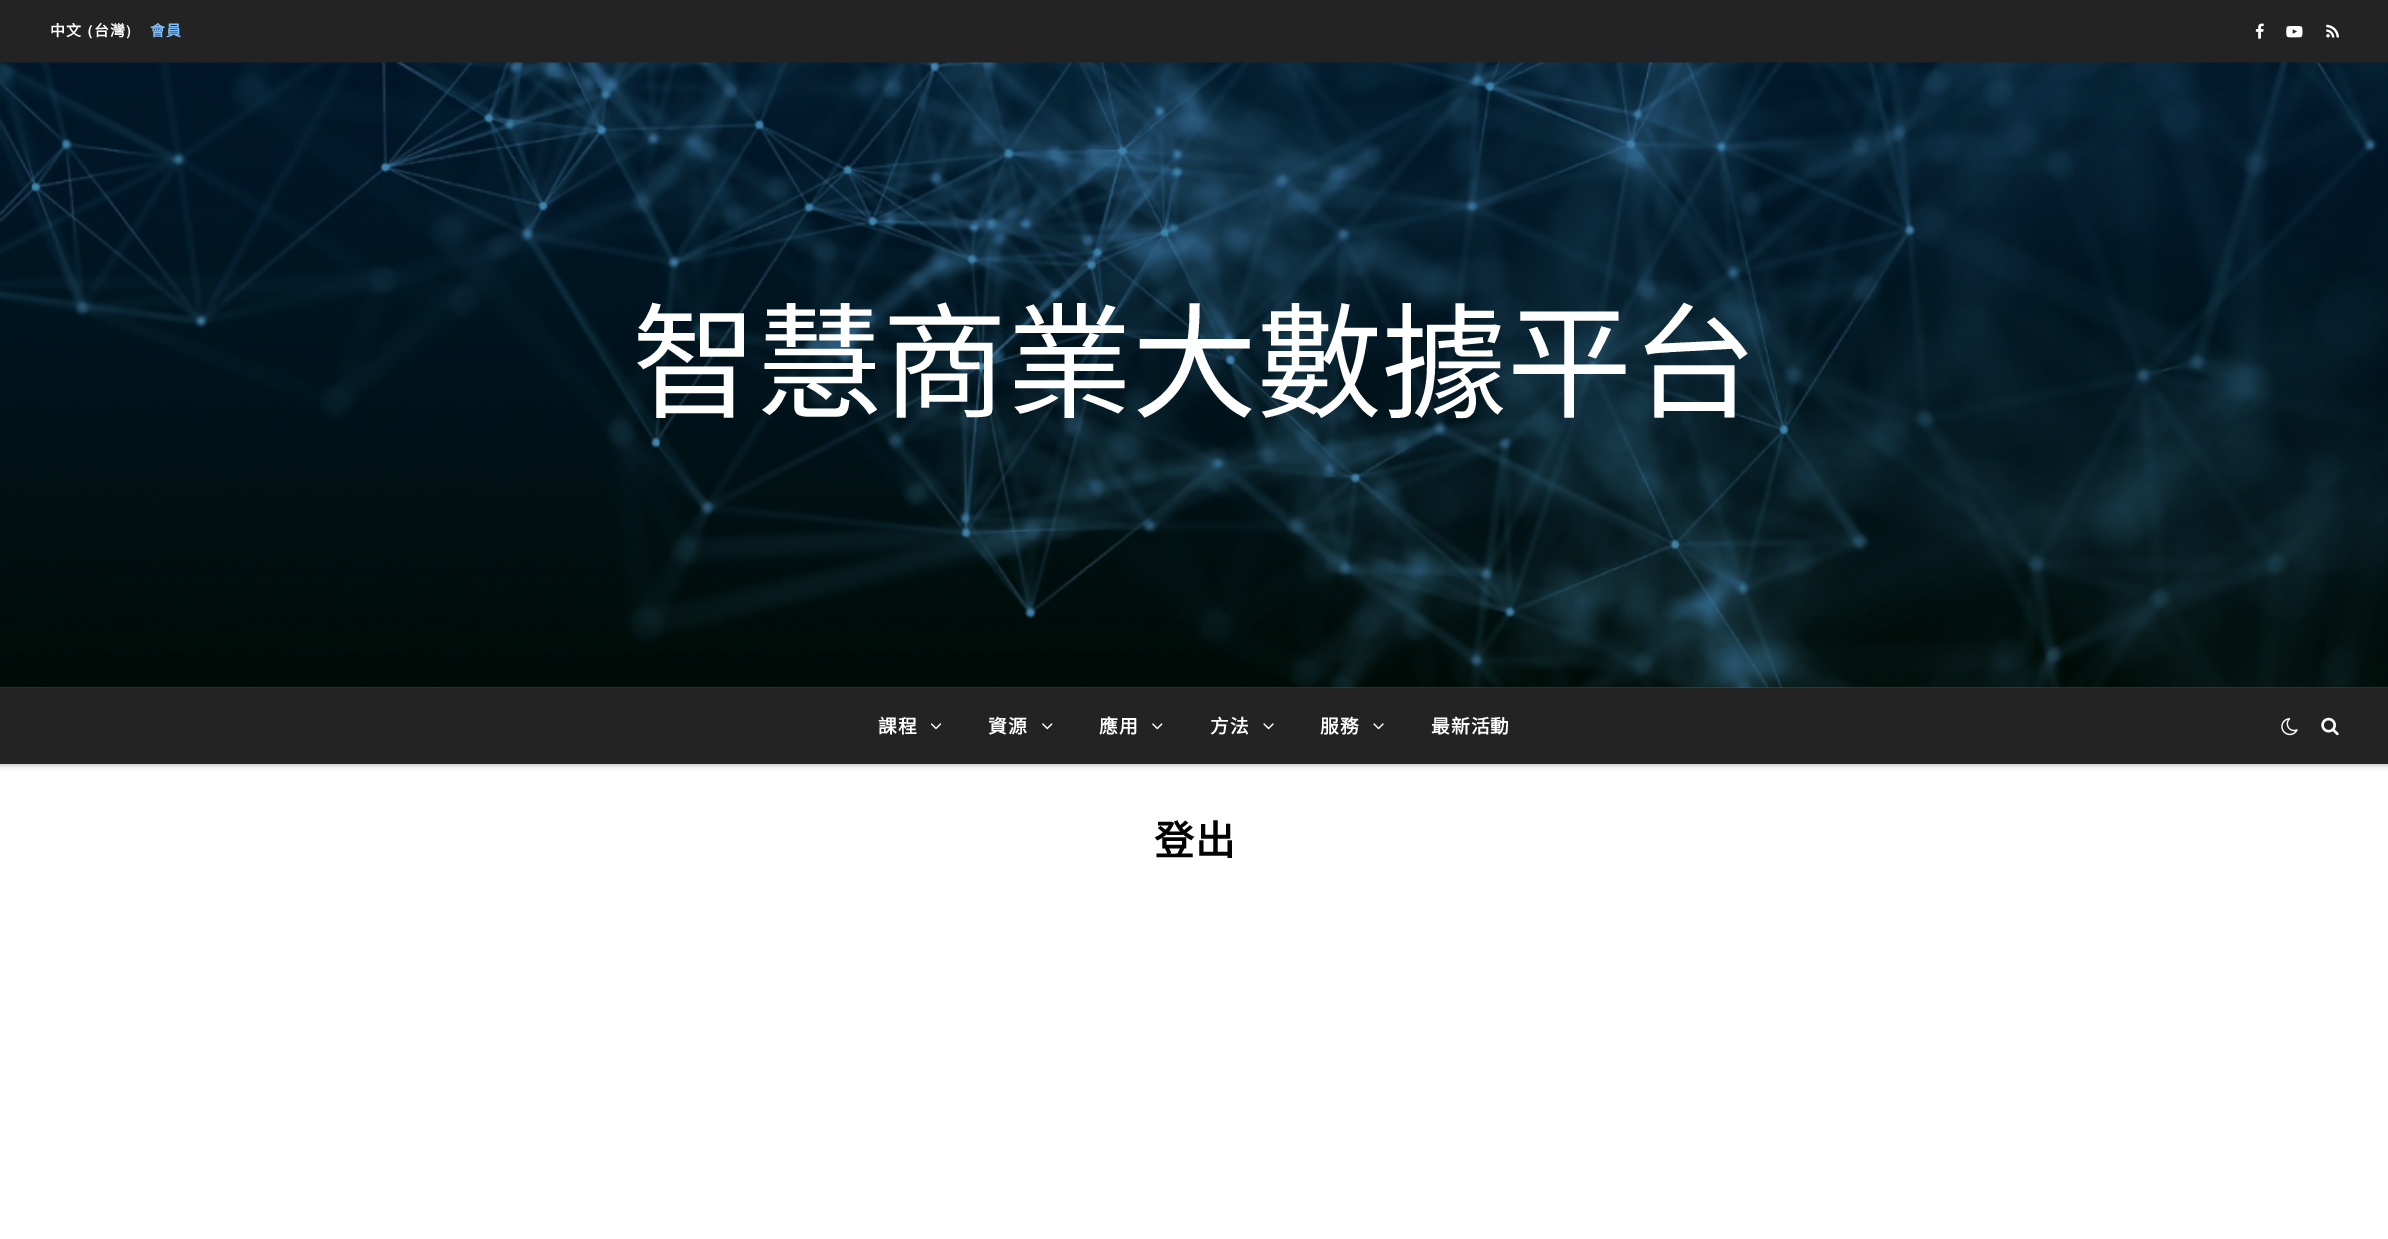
%!PS
<< /PageSize [2388 1239] /PageUsesTransparency true >> setpagedevice
/m/moveto load def
/C { dup -16 bitshift 255 div exch dup -8 bitshift 255 and 255 div exch 255 and 255 div setrgbcolor } def
/F { [ exch dup neg 0 0 3 -1 roll 0 0 ] selectfont } def
/T { moveto show } def
/R { rectfill } def
/A { dup .setfillconstantalpha .setstrokeconstantalpha } def
/Q { 5 dict begin { /r /h /w /y /x } { exch def } forall
  x r add y moveto x w add y 2 copy h add r arct x w add y h add x 1 index r arct
  x y h add x y r arct x y 2 copy exch w add exch r arct closepath end } def
/S { 12 dict begin { /a /b /q /h /w /y /x } { exch def } forall gsave /was 0 def
  9 -2 -9 { dup b mul 4 div /e exch def 1 sub .425 mul 2.718 exch exp 1 add a .99 .min exch div /now exch def
    1 1 now sub 1 was sub div sub A /was now def
    w h .min e 2 mul add 0 gt { x e sub y e sub w e 2 mul add h e 2 mul add
      q e add b .6 mul add w h .min 2 div e add .min 0 .max Q fill } if } for grestore end } def
/I { 5 dict begin { /h /w /y /x /name } { exch def } forall
  gsave x y translate w h scale
  w h 8 [w 0 0 h 0 0] name (r) file false 3 colorimage grestore end } def
0 .pushpdf14devicefilter
0 1239 translate 1 -1 scale
4 setmiterlimit
16#FFFFFF C
0 0 2388 1239 R
16#242323 C
0 0 2388 63 R
/NotoSansCJKTC-Bold 15 F
16#FFFFFF C
50 36 m 1 0 (中文) ashow
/OpenSans-SemiBold 15 F
88 36 m 1 0 (\() ashow
/NotoSansCJKTC-Bold 15 F
94 36 m 1 0 (台灣) ashow
/OpenSans-SemiBold 15 F
126 36 m 1 0 (\)) ashow
/NotoSansCJKTC-Bold 15 F
16#84C1FF C
150 36 m 1 0 (會員) ashow
(1.rgb) 2255 23 9 16 I
(2.rgb) 2286 26 17 12 I
(3.rgb) 2326 24 13 14 I
16#5B5B5B C
0 687 2388 1 R
(4.rgb) 0 62 2388 626 I
/NotoSansCJKTC-Regular 125 F
16#FFFFFF C
(智慧商業大數據平台) 632 408 T
16#000000 C
0 689 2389 76 0 3 .3 S
16#242323 C
0 688 2388 76 R
/NotoSansCJKTC-Bold 18.75 F
16#FFFFFF C
878 733 m 1 0 (課程) ashow
(5.rgb) 930 723 12 7 I
988 733 m 1 0 (資源) ashow
(6.rgb) 1042 723 11 7 I
1099 733 m 1 0 (應用) ashow
(6.rgb) 1152 723 11 7 I
1210 733 m 1 0 (方法) ashow
(7.rgb) 1263 723 11 7 I
1320 733 m 1 0 (服務) ashow
(7.rgb) 1373 723 11 7 I
1431 733 m 1 0 (最新活動) ashow
(8.rgb) 2281 718 17 18 I
(9.rgb) 2321 717 18 19 I
/NotoSansCJKTC-Bold 40 F
16#030303 C
1154 855 m 1 0 (登出) ashow
.poppdf14devicefilter showpage
